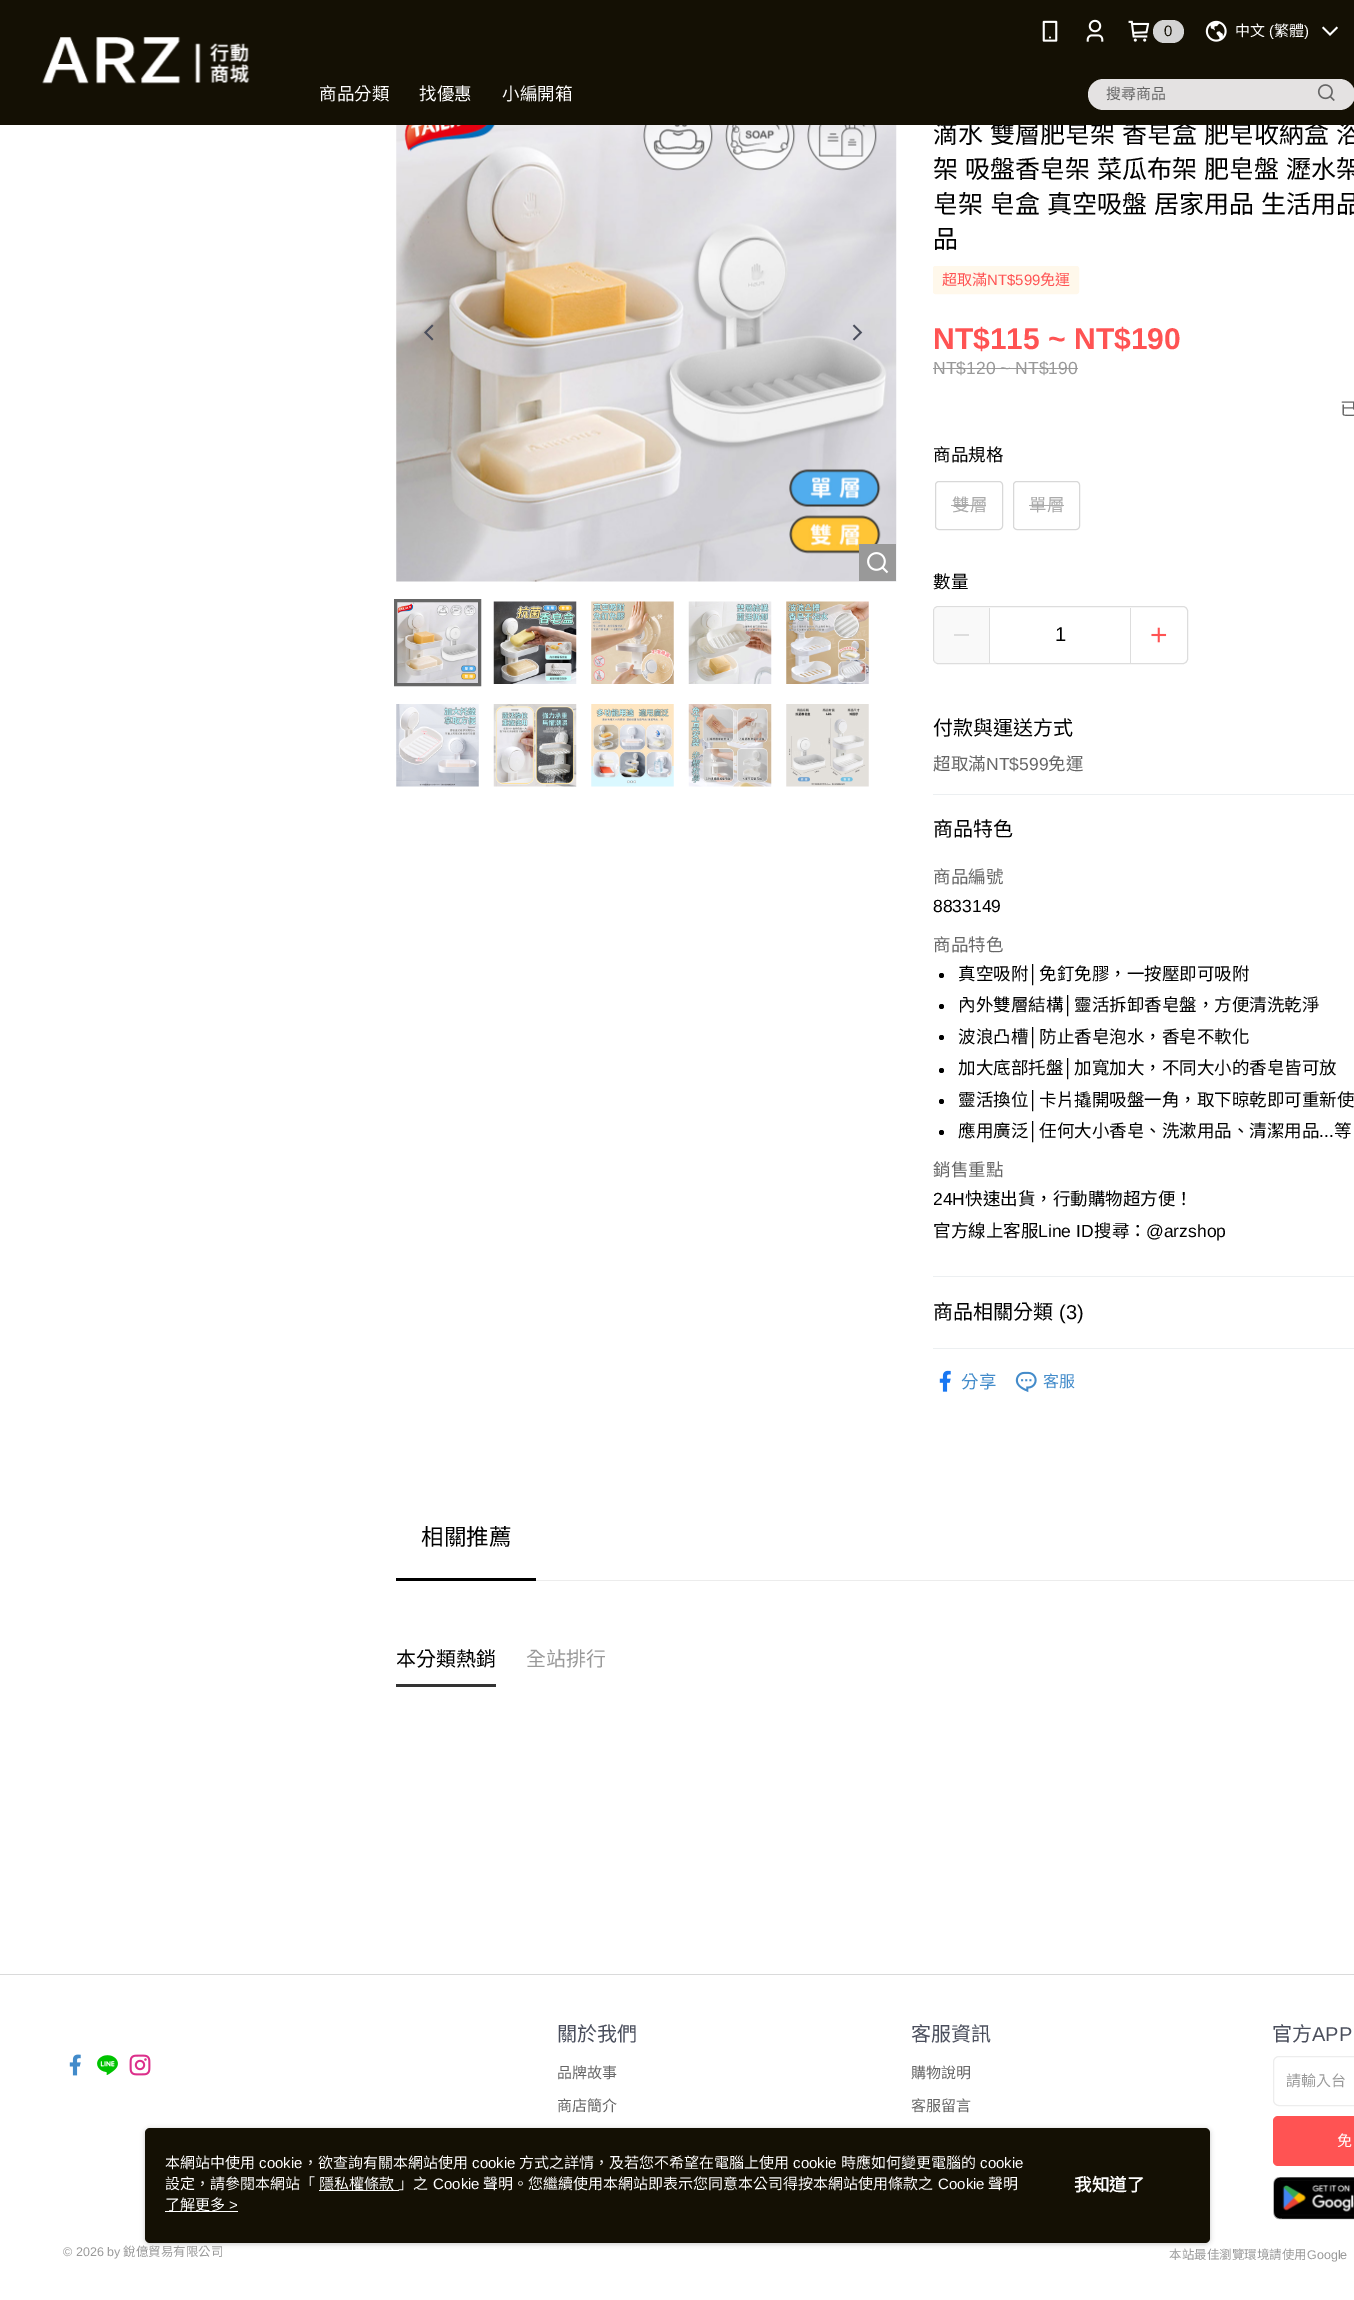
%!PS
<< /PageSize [1354 2300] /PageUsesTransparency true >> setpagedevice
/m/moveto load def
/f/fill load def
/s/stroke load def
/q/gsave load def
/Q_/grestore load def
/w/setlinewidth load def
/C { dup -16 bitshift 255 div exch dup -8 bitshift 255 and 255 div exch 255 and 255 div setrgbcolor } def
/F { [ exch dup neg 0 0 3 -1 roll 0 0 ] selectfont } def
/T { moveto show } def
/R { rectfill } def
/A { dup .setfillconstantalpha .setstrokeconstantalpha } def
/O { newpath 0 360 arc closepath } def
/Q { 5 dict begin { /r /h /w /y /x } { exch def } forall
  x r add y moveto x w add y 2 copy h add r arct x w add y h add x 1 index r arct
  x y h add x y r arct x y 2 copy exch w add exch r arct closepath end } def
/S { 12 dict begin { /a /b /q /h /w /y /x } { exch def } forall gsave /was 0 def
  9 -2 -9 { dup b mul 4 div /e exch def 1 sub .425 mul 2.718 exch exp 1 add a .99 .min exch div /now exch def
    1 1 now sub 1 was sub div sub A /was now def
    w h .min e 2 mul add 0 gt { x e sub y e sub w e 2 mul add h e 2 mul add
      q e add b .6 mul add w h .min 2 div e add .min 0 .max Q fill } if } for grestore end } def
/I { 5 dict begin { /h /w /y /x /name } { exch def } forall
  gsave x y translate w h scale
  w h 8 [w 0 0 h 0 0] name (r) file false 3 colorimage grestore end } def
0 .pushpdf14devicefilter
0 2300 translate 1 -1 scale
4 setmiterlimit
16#FFFFFF C
0 0 1354 2300 R
/NotoSansCJKTC-Regular 25 F
16#000000 C
933 143 m 1.5 0 32 (滴水 雙層肥皂架 香皂盒 肥皂收納盒 浴) widthshow
16#141004 C
0 0 1354 125 R
(1.rgb) 42 37 208 47 I
(2.rgb) 1042 20 16 22 I
(3.rgb) 1086 19 18 23 I
(4.rgb) 1128 20 22 22 I
16#D3D3D3 C
1153 20 31 23 11.5 Q f
/LiberationSans-Regular 15 F
16#141004 C
(0) 1164 36 T
(5.rgb) 1205 20 22 22 I
/NotoSansCJKTC-Regular 15 F
16#FFFFFF C
(中文) 1235 36 T
/LiberationSans-Regular 15 F
(\() 1269 36 T
/NotoSansCJKTC-Regular 15 F
(繁體) 1274 36 T
/LiberationSans-Regular 15 F
(\)) 1304 36 T
(6.rgb) 1322 26 16 10 I
/NotoSansCJKTC-Regular 17.5 F
(商品分類) 319 100 T
(找優惠) 419 100 T
(小編開箱) 502 100 T
16#E4E2E2 C
1088 79 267 31 15.5 Q f
/NotoSansCJKTC-Regular 15 F
16#666666 C
(搜尋商品) 1106 99 T
(7.rgb) 1317 84 18 17 I
(8.rgb) 396 125 501 457 I
16#999999 C
859 544 37 37 R
(9.rgb) 867 552 22 22 I
(10.rgb) 424 324 10 17 I
(11.rgb) 852 324 11 17 I
(12.rgb) 397 602 81 81 I
16#666666 C
3 w
395.5 600.5 84 84 rectstroke
(13.rgb) 493 601 84 83 I
(14.rgb) 591 601 83 83 I
(15.rgb) 688 601 84 83 I
(16.rgb) 786 601 83 83 I
(17.rgb) 396 704 83 83 I
(18.rgb) 493 704 84 83 I
(19.rgb) 591 704 83 83 I
(20.rgb) 688 704 84 83 I
(21.rgb) 786 704 83 83 I
/NotoSansCJKTC-Regular 25 F
16#000000 C
933 178 m 1.5 0 32 (架 吸盤香皂架 菜瓜布架 肥皂盤 瀝水架) widthshow
933 213 m 1.5 0 32 (皂架 皂盒 真空吸盤 居家用品 生活用品) widthshow
(品) 933 248 T
16#FFF8EB C
933.5 266.5 145 27 2 Q q f Q_
1 w
s
/NotoSansCJKTC-Regular 15 F
16#FF5353 C
(超取滿) 942 285 T
/LiberationSans-Regular 15 F
(NT$599) 987 285 T
/NotoSansCJKTC-Regular 15 F
(免運) 1040 285 T
/LiberationSans-Bold 30 F
(NT$115 ~ NT$190) 933 349 T
/LiberationSans-Regular 17.5 F
16#999999 C
(NT$120 ~ NT$190) 933 374 T
933 368 145 1 R
/NotoSansCJKTC-Regular 17.5 F
16#666666 C
(已) 1340 415 T
16#000000 C
(商品規格) 933 461 T
16#D8D8D8 C
935.5 481.5 67 48 3.5 Q s
16#AAAAAA C
(雙層) 952 511 T
951 505 35 1 R
16#D8D8D8 C
1013.5 481.5 66 48 3.5 Q s
16#AAAAAA C
(單層) 1029 511 T
1029 505 35 1 R
16#000000 C
(數量) 933 588 T
16#DDDDDD C
933.5 606.5 254 57 4.5 Q s
0.4 A
16#F1F1F1 C
934 608 55 55 R
1 A
16#DDDDDD C
954 634 15 2 R
1130 608 1 55 R
989 608 1 55 R
/LiberationSans-Regular 20 F
16#000000 C
(1) 1055 641 T
(22.rgb) 1151 627 16 16 I
16#ECEFF1 C
933 794 421 1 R
/NotoSansCJKTC-Regular 20 F
16#000000 C
(付款與運送方式) 933 735 T
/NotoSansCJKTC-Regular 17.5 F
16#666666 C
(超取滿) 933 770 T
/LiberationSans-Regular 17.5 F
(NT$599) 986 770 T
/NotoSansCJKTC-Regular 17.5 F
(免運) 1048 770 T
16#ECEFF1 C
933 1276 421 1 R
/NotoSansCJKTC-Regular 20 F
16#000000 C
(商品特色) 933 836 T
/NotoSansCJKTC-Regular 17.5 F
16#666666 C
(商品編號) 933 883 T
/LiberationSans-Regular 17.5 F
16#000000 C
(8833149) 933 912 T
/NotoSansCJKTC-Regular 17.5 F
16#666666 C
(商品特色) 933 951 T
16#000000 C
941.5 975.5 2.5 O f
(真空吸附) 958 980 T
/LiberationSans-Regular 17.5 F
(│) 1028 980 T
/NotoSansCJKTC-Regular 17.5 F
(免釘免膠，一按壓即可吸附) 1039 980 T
941.5 1006.5 2.5 O f
(內外雙層結構) 958 1011 T
/LiberationSans-Regular 17.5 F
(│) 1063 1011 T
/NotoSansCJKTC-Regular 17.5 F
(靈活拆卸香皂盤，方便清洗乾淨) 1074 1011 T
941.5 1037.5 2.5 O f
(波浪凸槽) 958 1043 T
/LiberationSans-Regular 17.5 F
(│) 1028 1043 T
/NotoSansCJKTC-Regular 17.5 F
(防止香皂泡水，香皂不軟化) 1039 1043 T
941.5 1070.5 2.5 O f
(加大底部托盤) 958 1074 T
/LiberationSans-Regular 17.5 F
(│) 1063 1074 T
/NotoSansCJKTC-Regular 17.5 F
(加寬加大，不同大小的香皂皆可放) 1074 1074 T
941.5 1101.5 2.5 O f
(靈活換位) 958 1106 T
/LiberationSans-Regular 17.5 F
(│) 1028 1106 T
/NotoSansCJKTC-Regular 17.5 F
(卡片撬開吸盤一角，取下晾乾即可重新使) 1039 1106 T
941.5 1132.5 2.5 O f
(應用廣泛) 958 1137 T
/LiberationSans-Regular 17.5 F
(│) 1028 1137 T
/NotoSansCJKTC-Regular 17.5 F
(任何大小香皂、洗漱用品、清潔用品) 1039 1137 T
(等) 1334 1137 T
/LiberationSans-Regular 17.5 F
(...) 1319 1137 T
/NotoSansCJKTC-Regular 17.5 F
16#666666 C
(銷售重點) 933 1176 T
/LiberationSans-Regular 17.5 F
16#000000 C
(24H) 933 1205 T
/NotoSansCJKTC-Regular 17.5 F
(快速出貨，行動購物超方便！) 965 1205 T
(官方線上客服) 933 1237 T
/LiberationSans-Regular 17.5 F
(Line ID) 1038 1237 T
/NotoSansCJKTC-Regular 17.5 F
(搜尋：) 1094 1237 T
/LiberationSans-Regular 17.5 F
(@arzshop) 1146 1237 T
16#ECEFF1 C
933 1348 421 1 R
/NotoSansCJKTC-Regular 20 F
16#000000 C
(商品相關分類) 933 1319 T
/LiberationSans-Regular 20 F
(\(3\)) 1059 1319 T
(23.rgb) 939 1370 12 22 I
/NotoSansCJKTC-Regular 17.5 F
16#428BCA C
(分享) 961 1388 T
(24.rgb) 1015 1371 22 22 I
/NotoSansCJKTC-Regular 16 F
(客服) 1043 1387 T
16#ECECEC C
536 1580 818 1 R
16#000000 C
396 1578 140 3 R
/NotoSansCJKTC-Regular 22.5 F
(相關推薦) 421 1545 T
16#333333 C
396 1684 100 3 R
/NotoSansCJKTC-Regular 20 F
16#000000 C
(本分類熱銷) 396 1666 T
16#999999 C
(全站排行) 526 1666 T
16#DADADA C
0 1974 1354 1 R
(25.rgb) 69 2054 12 22 I
(26.rgb) 97 2055 21 20 I
(27.rgb) 129 2054 22 22 I
16#4A4E5C C
(關於我們) 557 2041 T
/NotoSansCJKTC-Regular 15 F
16#666666 C
(品牌故事) 557 2078 T
(商店簡介) 557 2111 T
/NotoSansCJKTC-Regular 20 F
16#4A4E5C C
(客服資訊) 911 2041 T
/NotoSansCJKTC-Regular 15 F
16#666666 C
(購物說明) 911 2078 T
(客服留言) 911 2111 T
/NotoSansCJKTC-Regular 20 F
16#4A4E5C C
(官方) 1272 2041 T
/LiberationSans-Regular 20 F
(APP) 1312 2041 T
16#EDEDED C
1273.5 2056.5 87 49 5.5 Q s
/NotoSansCJKTC-Regular 15 F
16#999999 C
(請輸入台) 1286 2086 T
16#FF5353 C
1273 2116 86 50 5 Q f
16#FFFFFF C
(免) 1337 2146 T
(28.rgb) 1273 2177 81 43 I
/LiberationSans-Regular 12.5 F
16#999999 C
(© 2026 by) 63 2256 T
/NotoSansCJKTC-Regular 12.5 F
(銳億貿易有限公司) 123 2256 T
(本站最佳瀏覽環境請使用) 1169 2259 T
/LiberationSans-Regular 12.5 F
(Google) 1307 2259 T
16#979797 C
145 2129 1065 115 5 2.5 .5 S
16#141004 C
145 2128 1065 115 5 Q f
/NotoSansCJKTC-Regular 15 F
16#FFFFFF C
(本網站中使用) 165 2168 T
/LiberationSans-Regular 15 F
(cookie) 259 2168 T
/NotoSansCJKTC-Regular 15 F
(，欲查詢有關本網站使用) 303 2168 T
/LiberationSans-Regular 15 F
(cookie) 472 2168 T
/NotoSansCJKTC-Regular 15 F
(方式之詳情，及若您不希望在電腦上使用) 519 2168 T
/LiberationSans-Regular 15 F
(cookie) 793 2168 T
/NotoSansCJKTC-Regular 15 F
(時應如何變更電腦的) 841 2168 T
/LiberationSans-Regular 15 F
(cookie) 980 2168 T
/NotoSansCJKTC-Regular 15 F
(設定，請參閱本網站「) 165 2189 T
319 2190 80 1 R
(隱私權條款) 319 2189 T
(」之) 398 2189 T
/LiberationSans-Regular 15 F
(Cookie) 433 2189 T
/NotoSansCJKTC-Regular 15 F
(聲明。您繼續使用本網站即表示您同意本公司得按本網站使用條款之) 483 2189 T
/LiberationSans-Regular 15 F
(Cookie) 938 2189 T
/NotoSansCJKTC-Regular 15 F
(聲明) 988 2189 T
165 2211 73 1 R
(了解更多) 165 2210 T
/LiberationSans-Regular 15 F
(>) 229 2210 T
/NotoSansCJKTC-Bold 17.5 F
(我知道了) 1074 2191 T
.poppdf14devicefilter showpage
